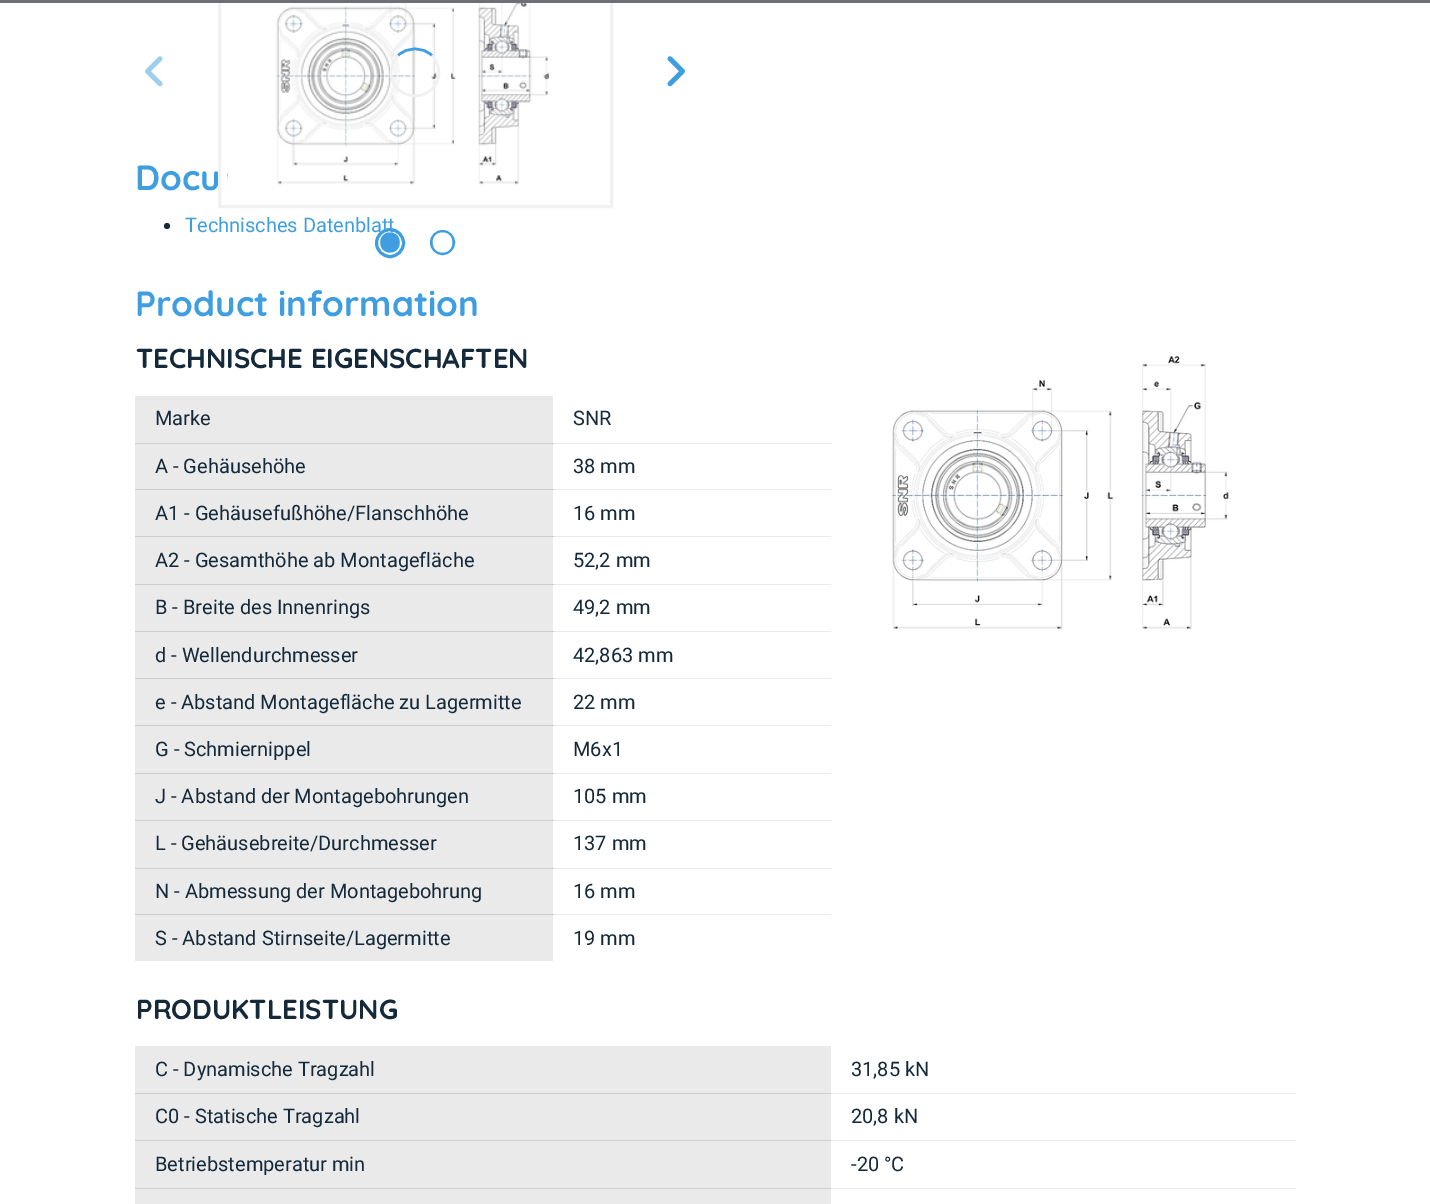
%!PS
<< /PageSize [1430 1204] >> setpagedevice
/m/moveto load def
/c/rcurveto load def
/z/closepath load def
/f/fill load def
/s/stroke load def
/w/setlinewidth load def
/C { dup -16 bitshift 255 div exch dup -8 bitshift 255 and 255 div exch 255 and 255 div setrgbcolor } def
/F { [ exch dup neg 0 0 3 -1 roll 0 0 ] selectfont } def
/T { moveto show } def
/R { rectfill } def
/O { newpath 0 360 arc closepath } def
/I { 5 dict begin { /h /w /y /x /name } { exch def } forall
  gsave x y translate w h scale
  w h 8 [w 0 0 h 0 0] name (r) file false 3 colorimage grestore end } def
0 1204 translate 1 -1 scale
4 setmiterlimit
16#FFFFFF C
0 0 1430 1204 R
/Quicksand-Bold 35 F
16#3E9EDF C
(Docu) 135 190 T
16#F1F1F1 C
3 w
219.5 -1.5 392 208 rectstroke
16#6C7079 C
0 0 1430 3 R
(1.rgb) 145 56 18 31 I
(2.rgb) 227 3 322 188 I
16#3E9EDF C
2.5 w
398 55.5 m 9.5 -9 24.5 -9 34 0 c s
16#F1F1F1 C
432 55.5 m 5.5 6 8 14 6.5 21.5 c -6 28 -47.5 24 -47.5 -4.5 c .5 -6.5 3 -12.5 7 -17 c s
(3.rgb) 667 56 18 31 I
16#3E9EDF C
3 w
390 243 13.5 O s
390 252.5 m 13 0 13 -20 0 -20 c -13 0 -13 20 0 20 c z f
442.5 242.5 11 O s
16#FFFFFF C
442.5 252.5 m 13 0 13 -20 0 -20 c -13 0 -13 20 0 20 c z f
16#14293A C
167 226 3 O f
/Roboto-Regular 20 F
16#3E9EDF C
(Technisches Datenblatt) 185 232 T
/Quicksand-Bold 35 F
(Product information) 135 316 T
/Quicksand-Bold 27.5 F
16#14293A C
(TECHNISCHE EIGENSCHAFTEN) 136 368 T
16#EAEAEA C
135 396 418 47 R
553 443 278 1 R
16#CDCDCD C
135 443 419 1 R
/Roboto-Regular 20 F
16#14293A C
(Marke) 155 425 T
(SNR) 573 425 T
16#EAEAEA C
135 444 418 45 R
553 489 278 1 R
16#CDCDCD C
135 489 419 1 R
16#14293A C
(A - Gehäusehöhe) 155 473 T
(38 mm) 573 473 T
16#EAEAEA C
135 490 418 94 R
553 536 278 1 R
16#CDCDCD C
135 536 419 1 R
16#14293A C
(A1 - Gehäusefußhöhe/Flanschhöhe) 155 520 T
(16 mm) 573 520 T
16#EAEAEA C
553 584 278 1 R
16#CDCDCD C
135 584 419 1 R
16#14293A C
(A2 - Gesamthöhe ab Montagefläche) 155 567 T
(52,2 mm) 573 567 T
16#EAEAEA C
135 585 418 46 R
553 631 278 1 R
16#CDCDCD C
135 631 419 1 R
16#14293A C
(B - Breite des Innenrings) 155 614 T
(49,2 mm) 573 614 T
16#EAEAEA C
135 632 418 46 R
553 678 278 1 R
16#CDCDCD C
135 678 419 1 R
16#14293A C
(d - Wellendurchmesser) 155 662 T
(42,863 mm) 573 662 T
16#EAEAEA C
135 679 418 46 R
553 725 278 1 R
16#CDCDCD C
135 725 419 1 R
16#14293A C
(e - Abstand Montagefläche zu Lagermitte) 155 709 T
(22 mm) 573 709 T
16#EAEAEA C
135 726 418 47 R
553 773 278 1 R
16#CDCDCD C
135 773 419 1 R
16#14293A C
(G - Schmiernippel) 155 756 T
(M6x1) 573 756 T
16#EAEAEA C
135 774 418 46 R
553 820 278 1 R
16#CDCDCD C
135 820 419 1 R
16#14293A C
(J - Abstand der Montagebohrungen) 155 803 T
(105 mm) 573 803 T
16#EAEAEA C
135 821 418 47 R
553 868 278 1 R
16#CDCDCD C
135 868 419 1 R
16#14293A C
(L - Gehäusebreite/Durchmesser) 155 850 T
(137 mm) 573 850 T
16#EAEAEA C
135 869 418 45 R
553 914 278 1 R
16#CDCDCD C
135 914 419 1 R
16#14293A C
(N - Abmessung der Montagebohrung) 155 898 T
(16 mm) 573 898 T
16#EAEAEA C
135 915 418 46 R
16#14293A C
(S - Abstand Stirnseite/Lagermitte) 155 945 T
(19 mm) 573 945 T
(4.rgb) 892 356 337 274 I
/Quicksand-Bold 27.5 F
(PRODUKTLEISTUNG) 136 1019 T
16#EAEAEA C
135 1046 696 47 R
830 1093 466 1 R
16#CDCDCD C
135 1093 696 1 R
/Roboto-Regular 20 F
16#14293A C
(C - Dynamische Tragzahl) 155 1076 T
(31,85 kN) 851 1076 T
16#EAEAEA C
135 1094 696 46 R
830 1140 466 1 R
16#CDCDCD C
135 1140 696 1 R
16#14293A C
(C0 - Statische Tragzahl) 155 1123 T
(20,8 kN) 851 1123 T
16#EAEAEA C
135 1141 696 47 R
830 1188 466 1 R
16#CDCDCD C
135 1188 696 1 R
16#14293A C
(Betriebstemperatur min) 155 1171 T
(-20 °C) 851 1171 T
16#EAEAEA C
135 1189 696 15 R
showpage
